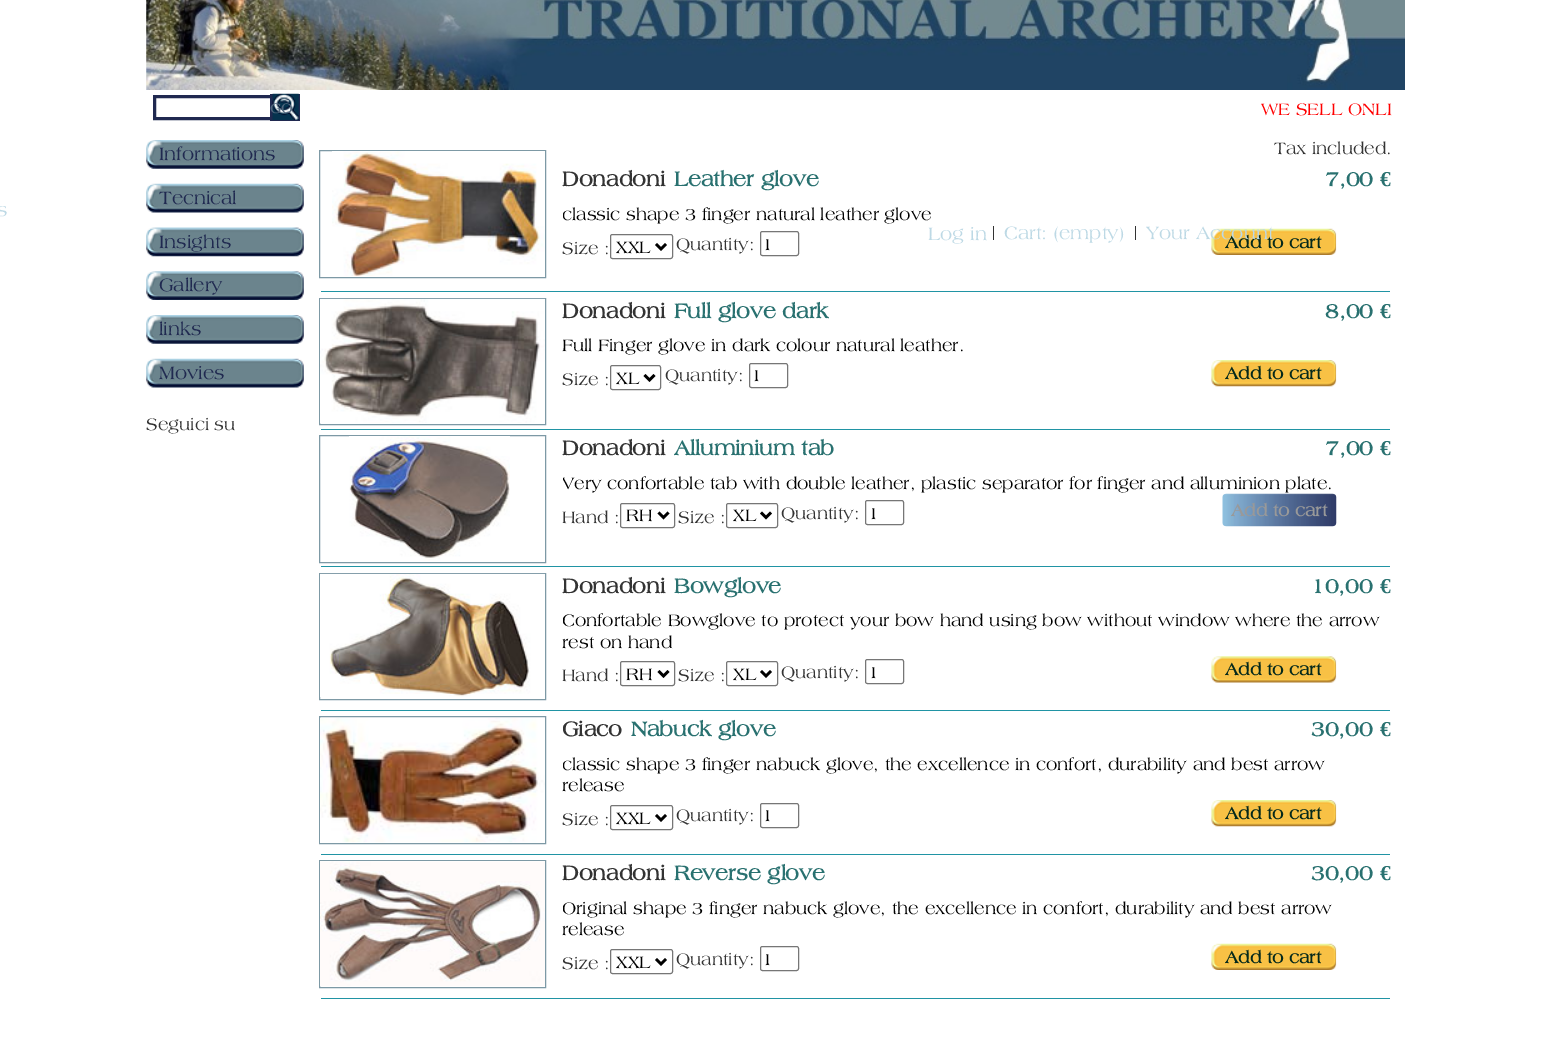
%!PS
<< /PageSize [1550 1040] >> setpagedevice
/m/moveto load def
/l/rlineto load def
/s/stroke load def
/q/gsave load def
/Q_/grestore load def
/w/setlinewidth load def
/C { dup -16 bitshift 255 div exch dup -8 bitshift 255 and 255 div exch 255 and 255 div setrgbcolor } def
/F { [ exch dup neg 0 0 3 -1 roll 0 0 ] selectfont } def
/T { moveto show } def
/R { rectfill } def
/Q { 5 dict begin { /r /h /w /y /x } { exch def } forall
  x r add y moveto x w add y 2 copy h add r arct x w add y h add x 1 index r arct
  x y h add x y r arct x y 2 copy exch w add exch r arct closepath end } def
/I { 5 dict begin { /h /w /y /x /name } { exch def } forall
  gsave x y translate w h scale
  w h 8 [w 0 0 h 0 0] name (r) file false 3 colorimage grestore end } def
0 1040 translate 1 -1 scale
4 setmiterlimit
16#FFFFFF C
0 0 1550 1040 R
16#202950 C
3 w
154.5 96.5 117 22 rectstroke
270 94 30 27 R
(1.rgb) 272 93 27 27 I
/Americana-Bold 14 F
16#50667C C
(GO) 270 113 T
(2.rgb) 146 140 158 29 I
/Americana-Regular 18.75 F
16#202950 C
(Informations) 159 160 T
(3.rgb) 146 183 158 30 I
(Tecnical) 159 204 T
(4.rgb) 146 227 158 30 I
(Insights) 159 248 T
(5.rgb) 146 271 158 29 I
(Gallery) 159 291 T
(2.rgb) 146 315 158 29 I
(links) 159 335 T
(3.rgb) 146 358 158 30 I
(Movies) 159 379 T
/Americana-Regular 17.5 F
16#333333 C
(Seguici su) 146 430 T
16#FF0000 C
(WE SELL ONLI) 1261 115 T
16#333333 C
(Tax included.) 1274 154 T
16#2094A4 C
321 291 1069 1 R
16#7D99A5 C
1 w
319.5 150.5 226 127 rectstroke
(6.rgb) 332 151 213 126 I
/Americana-Bold 21.25 F
16#333333 C
(Donadoni) 562 186 T
16#297170 C
(Leather glove) 674 186 T
(7,00) 1325 186 T
/LiberationSerif-Bold 21.25 F
(€) 1380 186 T
q
563 204 830 21 rectclip
/Americana-Regular 17.5 F
16#000000 C
(classic shape 3 finger natural leather glove) 562 220 T
Q_
/Americana-Regular 17.5 F
16#333333 C
(Size :) 562 254 T
16#767676 C
610.5 234.5 62 24 2 Q s
16#000000 C
2.5 w
656 244 m 5 5 l 5 -5 l s
(XXL) 616 253 T
16#333333 C
(Quantity:) 676 250 T
16#767676 C
1 w
760.5 231.5 38 24 2 Q s
16#000000 C
(1) 762 250 T
(7.rgb) 1211 228 126 27 I
/Americana-Bold 17.5 F
16#05291B C
(Add to cart) 1225 248 T
16#2094A4 C
321 429 1069 1 R
16#7D99A5 C
319.5 298.5 226 126 rectstroke
(8.rgb) 320 298 225 125 I
/Americana-Bold 21.25 F
16#333333 C
(Donadoni) 562 318 T
16#297170 C
(Full glove dark) 674 318 T
(8,00) 1325 318 T
/LiberationSerif-Bold 21.25 F
(€) 1380 318 T
/Americana-Regular 17.5 F
16#000000 C
(Full Finger glove in dark colour natural leather.) 562 351 T
16#333333 C
(Size :) 562 385 T
16#767676 C
610.5 365.5 50 24 2 Q s
16#000000 C
2.5 w
644.5 375 m 5 5 l 5 -5 l s
(XL) 616 384 T
16#333333 C
(Quantity:) 665 381 T
16#767676 C
1 w
749.5 363.5 38 24 2 Q s
16#000000 C
(1) 751 381 T
(9.rgb) 1211 360 126 27 I
/Americana-Bold 17.5 F
16#05291B C
(Add to cart) 1225 379 T
16#2094A4 C
321 566 1069 1 R
16#7D99A5 C
319.5 435.5 226 127 rectstroke
(10.rgb) 349 436 161 125 I
/Americana-Bold 21.25 F
16#333333 C
(Donadoni) 562 455 T
16#297170 C
(Alluminium tab) 674 455 T
(7,00) 1325 455 T
/LiberationSerif-Bold 21.25 F
(€) 1380 455 T
q
563 473 830 21 rectclip
/Americana-Regular 17.5 F
16#000000 C
(Very confortable tab with double leather, plastic separator for finger and alluminion plate.) 562 489 T
Q_
/Americana-Regular 17.5 F
16#333333 C
(Hand :) 562 523 T
16#767676 C
620.5 503.5 54 24 2 Q s
16#000000 C
2.5 w
658.5 512.5 m 5 5 l 5 -5 l s
(RH) 626 521 T
16#333333 C
(Size :) 678 523 T
16#767676 C
1 w
726.5 503.5 51 24 2 Q s
16#000000 C
2.5 w
761 512.5 m 5 5 l 5 -5 l s
(XL) 733 521 T
16#333333 C
(Quantity:) 781 519 T
16#767676 C
1 w
865.5 500.5 38 24 2 Q s
16#000000 C
(1) 868 519 T
(11.rgb) 1222 493 115 34 I
/Americana-Bold 17.5 F
16#999999 C
(Add to cart) 1231 516 T
16#2094A4 C
321 710 1069 1 R
16#7D99A5 C
319.5 573.5 226 126 rectstroke
(12.rgb) 320 573 225 124 I
/Americana-Bold 21.25 F
16#333333 C
(Donadoni) 562 593 T
16#297170 C
(Bowglove) 674 593 T
(10,00) 1311 593 T
/LiberationSerif-Bold 21.25 F
(€) 1380 593 T
q
563 610 830 43 rectclip
/Americana-Regular 17.5 F
16#000000 C
(Confortable Bowglove to protect your bow hand using bow without window where the arrow) 562 626 T
Q_
/Americana-Regular 17.5 F
16#000000 C
(rest on hand) 562 648 T
16#333333 C
(Hand :) 562 681 T
16#767676 C
620.5 661.5 54 24 2 Q s
16#000000 C
2.5 w
658.5 671 m 5 5 l 5 -5 l s
(RH) 626 680 T
16#333333 C
(Size :) 678 681 T
16#767676 C
1 w
726.5 661.5 51 24 2 Q s
16#000000 C
2.5 w
761 671 m 5 5 l 5 -5 l s
(XL) 733 680 T
16#333333 C
(Quantity:) 781 678 T
16#767676 C
1 w
865.5 659.5 38 24 2 Q s
16#000000 C
(1) 868 678 T
(13.rgb) 1211 656 126 27 I
/Americana-Bold 17.5 F
16#05291B C
(Add to cart) 1225 675 T
16#2094A4 C
321 854 1069 1 R
16#7D99A5 C
319.5 716.5 226 127 rectstroke
(14.rgb) 320 718 225 125 I
/Americana-Bold 21.25 F
16#333333 C
(Giaco) 562 736 T
16#297170 C
(Nabuck glove) 631 736 T
(30,00) 1311 736 T
/LiberationSerif-Bold 21.25 F
(€) 1380 736 T
q
563 754 830 42 rectclip
/Americana-Regular 17.5 F
16#000000 C
(classic shape 3 finger nabuck glove, the excellence in confort, durability and best arrow) 562 770 T
Q_
/Americana-Regular 17.5 F
16#000000 C
(release) 562 791 T
16#333333 C
(Size :) 562 825 T
16#767676 C
610.5 805.5 62 24 2 Q s
16#000000 C
2.5 w
656 815 m 5 5 l 5 -5 l s
(XXL) 616 824 T
16#333333 C
(Quantity:) 676 821 T
16#767676 C
1 w
760.5 803.5 38 24 2 Q s
16#000000 C
(1) 762 821 T
(9.rgb) 1211 800 126 27 I
/Americana-Bold 17.5 F
16#05291B C
(Add to cart) 1225 819 T
16#2094A4 C
321 998 1069 1 R
16#7D99A5 C
319.5 860.5 226 127 rectstroke
(15.rgb) 320 861 225 125 I
/Americana-Bold 21.25 F
16#333333 C
(Donadoni) 562 880 T
16#297170 C
(Reverse glove) 674 880 T
(30,00) 1311 880 T
/LiberationSerif-Bold 21.25 F
(€) 1380 880 T
q
563 898 830 42 rectclip
/Americana-Regular 17.5 F
16#000000 C
(Original shape 3 finger nabuck glove, the excellence in confort, durability and best arrow) 562 914 T
Q_
/Americana-Regular 17.5 F
16#000000 C
(release) 562 935 T
16#333333 C
(Size :) 562 969 T
16#767676 C
610.5 949.5 62 24 2 Q s
16#000000 C
2.5 w
656 959 m 5 5 l 5 -5 l s
(XXL) 616 968 T
16#333333 C
(Quantity:) 676 965 T
16#767676 C
1 w
760.5 946.5 38 24 2 Q s
16#000000 C
(1) 762 965 T
(16.rgb) 1211 943 126 27 I
/Americana-Bold 17.5 F
16#05291B C
(Add to cart) 1225 963 T
(17.rgb) 146 0 1259 90 I
/Americana-Regular 18.75 F
16#BDD9E5 C
(s) -3 216 T
(Log in) 928 240 T
16#333333 C
993 226 1 14 R
16#BDD9E5 C
(Cart: \(empty\)) 1004 239 T
16#333333 C
1135 226 1 14 R
16#BDD9E5 C
(Your Account) 1146 239 T
showpage
